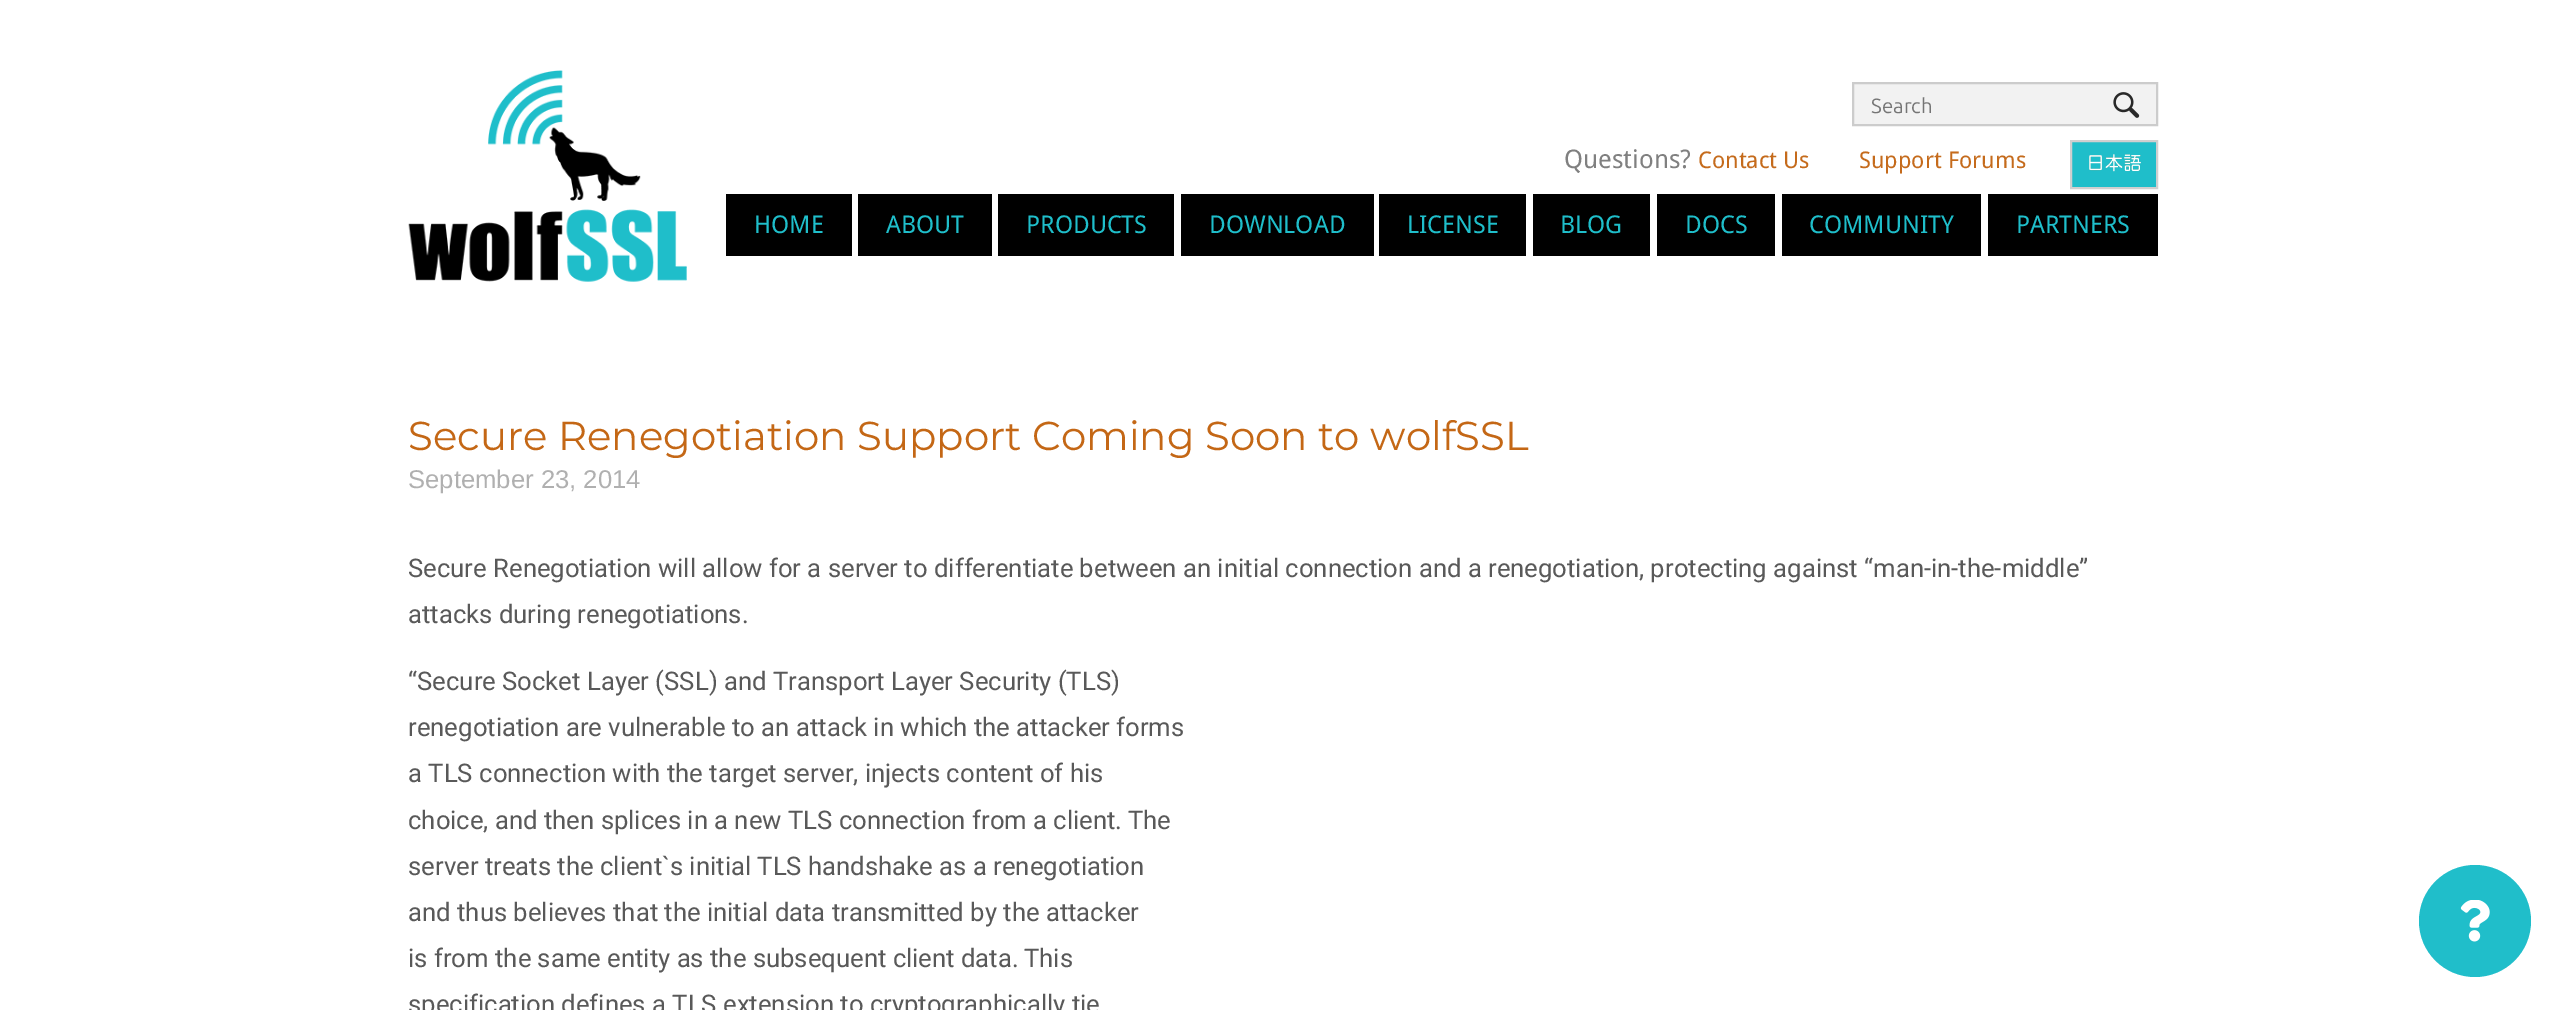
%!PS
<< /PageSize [2565 1010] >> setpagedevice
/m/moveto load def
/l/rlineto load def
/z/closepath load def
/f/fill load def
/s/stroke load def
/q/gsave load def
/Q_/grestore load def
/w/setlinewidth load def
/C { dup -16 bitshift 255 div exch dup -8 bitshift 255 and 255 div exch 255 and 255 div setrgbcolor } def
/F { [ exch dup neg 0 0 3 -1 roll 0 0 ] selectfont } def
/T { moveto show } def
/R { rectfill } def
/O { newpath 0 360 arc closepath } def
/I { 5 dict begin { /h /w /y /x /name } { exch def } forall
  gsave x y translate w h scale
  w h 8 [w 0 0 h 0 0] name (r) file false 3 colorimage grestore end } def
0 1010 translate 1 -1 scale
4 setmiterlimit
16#FFFFFF C
0 0 2565 1010 R
(1.rgb) 408 70 279 212 I
16#F2F2F2 C
1853 83 m 304 0 l 0 42 l -304 0 l z q f Q_
16#CCCCCC C
2 w
s
/Ubuntu-Regular 20.5 F
16#757575 C
(Search) 1871 113 T
(2.rgb) 2113 92 27 26 I
16#000000 C
726 194 126 62 R
/DroidSans-Regular 24.5 F
16#1FBECA C
(HOME) 754 233 T
16#000000 C
858 194 134 62 R
16#1FBECA C
(ABOUT) 886 233 T
16#000000 C
998 194 176 62 R
16#1FBECA C
(PRODUCTS) 1026 233 T
16#000000 C
1181 194 193 62 R
16#1FBECA C
(DOWNLOAD) 1209 233 T
16#000000 C
1379 194 147 62 R
16#1FBECA C
(LICENSE) 1407 233 T
16#000000 C
1533 194 117 62 R
16#1FBECA C
(BLOG) 1560 233 T
16#000000 C
1657 194 118 62 R
16#1FBECA C
(DOCS) 1685 233 T
16#000000 C
1782 194 199 62 R
16#1FBECA C
(COMMUNITY) 1809 233 T
16#000000 C
1988 194 170 62 R
16#1FBECA C
(PARTNERS) 2016 233 T
/DroidSans-Regular 25.67 F
16#808080 C
(Questions?) 1564 168 T
/DroidSans-Regular 23 F
16#C56B1C C
(Contact Us) 1698 168 T
(Support Forums) 1859 168 T
16#1FBECA C
2071 141 m 86 0 l 0 47 l -86 0 l z q f Q_
16#CFCFCF C
s
(3.rgb) 2089 154 52 18 I
/Montserrat-Thin 40.3 F
16#C46715 C
(Secure Renegotiation Support Coming Soon to wolfSSL) 408 450 T
/LiberationSans-Regular 25.67 F
16#B0B0B0 C
(September 23, 2014) 408 488 T
/Roboto-Regular 25.67 F
16#595959 C
(Secure Renegotiation will allow for a server to differentiate between an initial connection and a renegotiation, protecting against “man-in-the-middle”) 408 577 T
(attacks during renegotiations.) 408 623 T
(“Secure Socket Layer \(SSL\) and Transport Layer Security \(TLS\)) 408 690 T
(renegotiation are vulnerable to an attack in which the attacker forms) 408 736 T
(a TLS connection with the target server, injects content of his) 408 782 T
(choice, and then splices in a new TLS connection from a client.) 408 829 T
(The) 1128 829 T
(server treats the client`s initial TLS handshake as a renegotiation) 408 875 T
(and thus believes that the initial data transmitted by the attacker) 408 921 T
(is from the same entity as the subsequent client data.) 408 967 T
(This) 1024 967 T
(specification defines a TLS extension to cryptographically tie) 408 1013 T
16#20BECA C
2475 921 56 O f
(4.rgb) 2460 900 30 42 I
showpage
